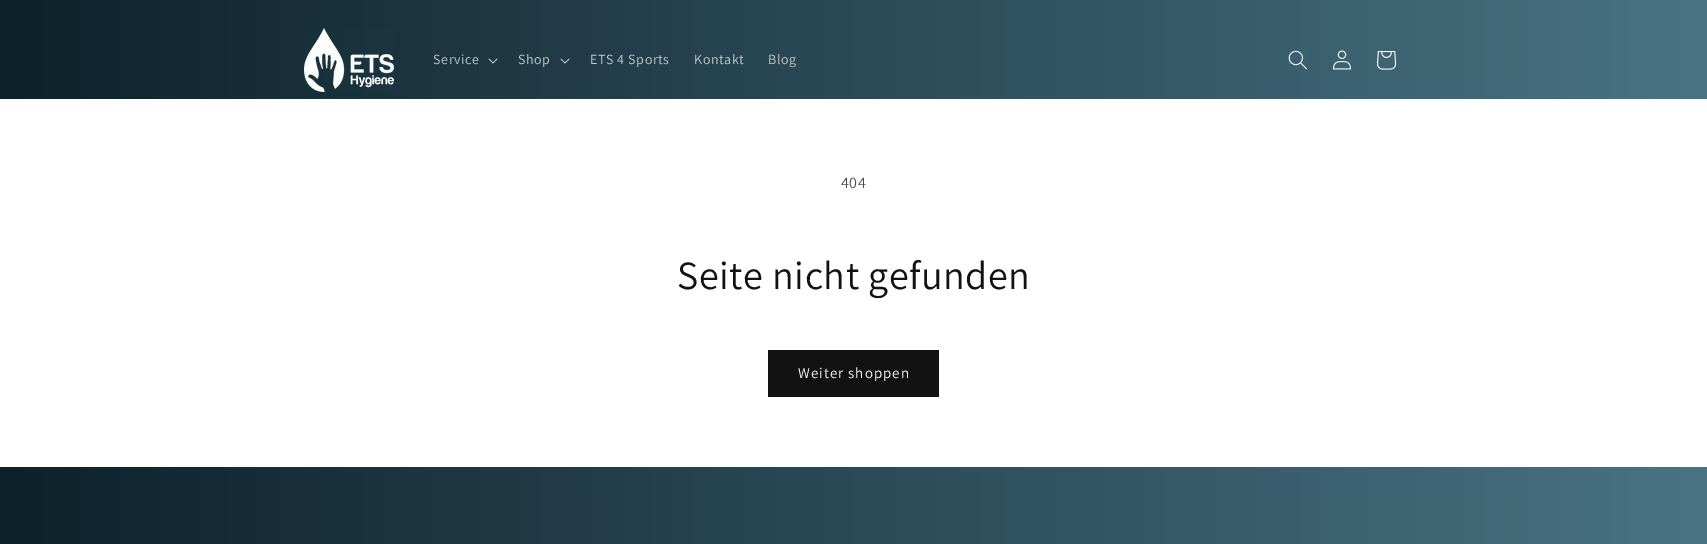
%!PS
<< /PageSize [1707 544] >> setpagedevice
/m/moveto load def
/l/rlineto load def
/z/closepath load def
/q/gsave load def
/Q_/grestore load def
/C { dup -16 bitshift 255 div exch dup -8 bitshift 255 and 255 div exch 255 and 255 div setrgbcolor } def
/F { [ exch dup neg 0 0 3 -1 roll 0 0 ] selectfont } def
/R { rectfill } def
/I { 5 dict begin { /h /w /y /x /name } { exch def } forall
  gsave x y translate w h scale
  w h 8 [w 0 0 h 0 0] name (r) file false 3 colorimage grestore end } def
0 544 translate 1 -1 scale
4 setmiterlimit
16#FFFFFF C
0 0 1707 544 R
q 0 0 m 1707 0 l 0 99 l -1707 0 l z clip newpath
<< /ShadingType 2 /ColorSpace /DeviceRGB /Coords [0 272 1707 272] /Extend [true true] /Function << /FunctionType 2 /Domain [0 1] /C0 [.051 .129 .165] /C1 [.286 .451 .514] /N 1 >> >> shfill Q_
(1.rgb) 304 28 90 64 I
/Assistant-Regular 14 F
16#C8CFD2 C
433 64 m .6 0 (Service) ashow
(2.rgb) 488 58 10 6 I
518 64 m .6 0 (Shop) ashow
(3.rgb) 560 58 10 6 I
590 64 m .6 0 (ETS 4 Sports) ashow
694 64 m .6 0 (Kontakt) ashow
768 64 m .6 0 (Blog) ashow
(4.rgb) 1288 50 19 20 I
(5.rgb) 1333 50 18 20 I
(6.rgb) 1377 51 20 19 I
/Assistant-Regular 16 F
16#4D4D4D C
841 188 m .6 0 (404) ashow
/Assistant-Regular 40 F
16#121212 C
677 289 m .6 0 (Seite nicht gefunden) ashow
768 350 171 47 R
/Assistant-Regular 15 F
16#FFFFFF C
798 378 m 1 0 (Weiter shoppen) ashow
q 0 467 m 1707 0 l 0 77 l -1707 0 l z clip newpath
<< /ShadingType 2 /ColorSpace /DeviceRGB /Coords [0 272 1707 272] /Extend [true true] /Function << /FunctionType 2 /Domain [0 1] /C0 [.051 .129 .165] /C1 [.286 .451 .514] /N 1 >> >> shfill Q_
showpage
